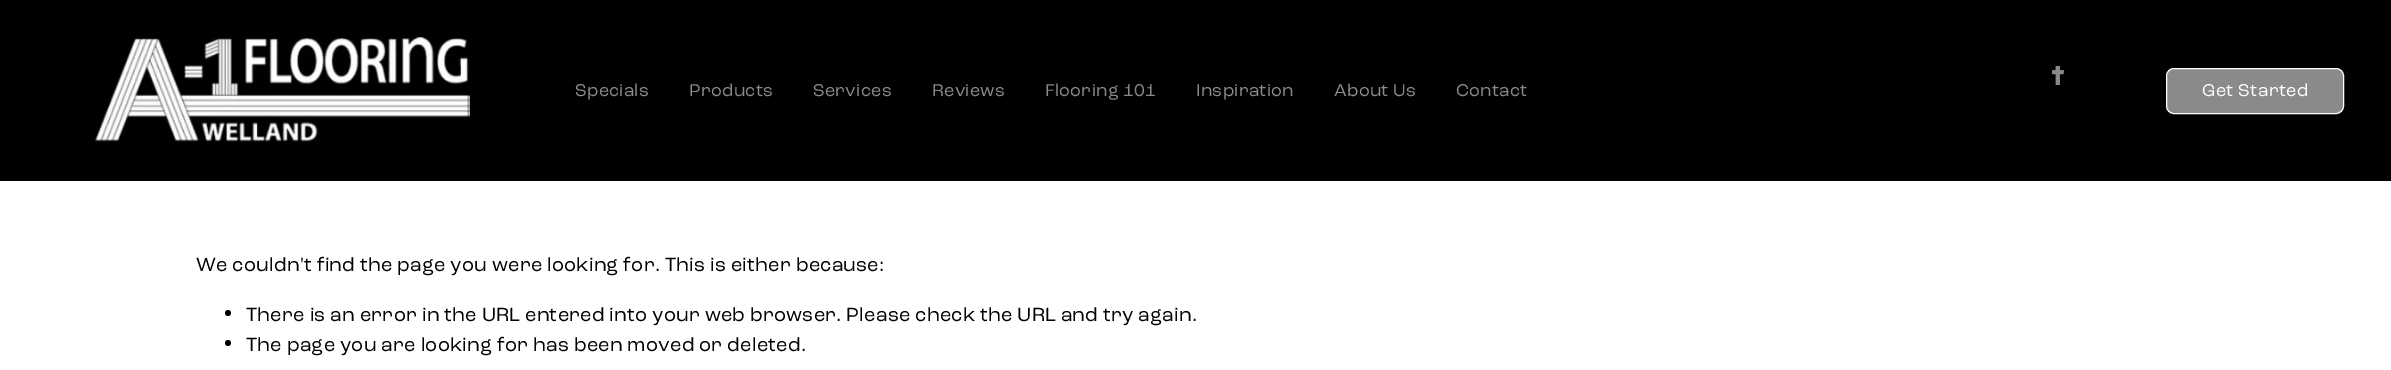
%!PS
<< /PageSize [2391 370] >> setpagedevice
/m/moveto load def
/f/fill load def
/s/stroke load def
/q/gsave load def
/Q_/grestore load def
/C { dup -16 bitshift 255 div exch dup -8 bitshift 255 and 255 div exch 255 and 255 div setrgbcolor } def
/F { [ exch dup neg 0 0 3 -1 roll 0 0 ] selectfont } def
/R { rectfill } def
/O { newpath 0 360 arc closepath } def
/Q { 5 dict begin { /r /h /w /y /x } { exch def } forall
  x r add y moveto x w add y 2 copy h add r arct x w add y h add x 1 index r arct
  x y h add x y r arct x y 2 copy exch w add exch r arct closepath end } def
/I { 5 dict begin { /h /w /y /x /name } { exch def } forall
  gsave x y translate w h scale
  w h 8 [w 0 0 h 0 0] name (r) file false 3 colorimage grestore end } def
0 370 translate 1 -1 scale
4 setmiterlimit
16#FFFFFF C
0 0 2391 370 R
16#000000 C
0 0 2391 181 R
(1.rgb) 92 37 380 105 I
/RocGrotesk-Regular 18 F
16#8A8A8A C
575 96 m .25 0 (Specials) ashow
689 96 m .25 0 (Products) ashow
813 96 m .25 0 (Services) ashow
932 96 m .25 0 (Reviews) ashow
1045 96 m .25 0 (Flooring 101) ashow
1196 96 m .25 0 (Inspiration) ashow
1334 96 m .25 0 (About Us) ashow
1456 96 m .25 0 (Contact) ashow
(2.rgb) 2052 66 12 19 I
2166.5 68.5 177 45 7.5 Q q f Q_
16#FFFFFF C
s
2202 96 m .4 0 (Get Started) ashow
/RocGrotesk-Regular 20 F
16#000000 C
196 271 m .2 0 (We couldn't find the page you were looking for. This is either because:) ashow
228 313 3 O f
246 321 m .2 0 (There is an error in the URL entered into your web browser. Please check the URL and try again.) ashow
228 343 3 O f
246 351 m .2 0 (The page you are looking for has been moved or deleted.) ashow
showpage
